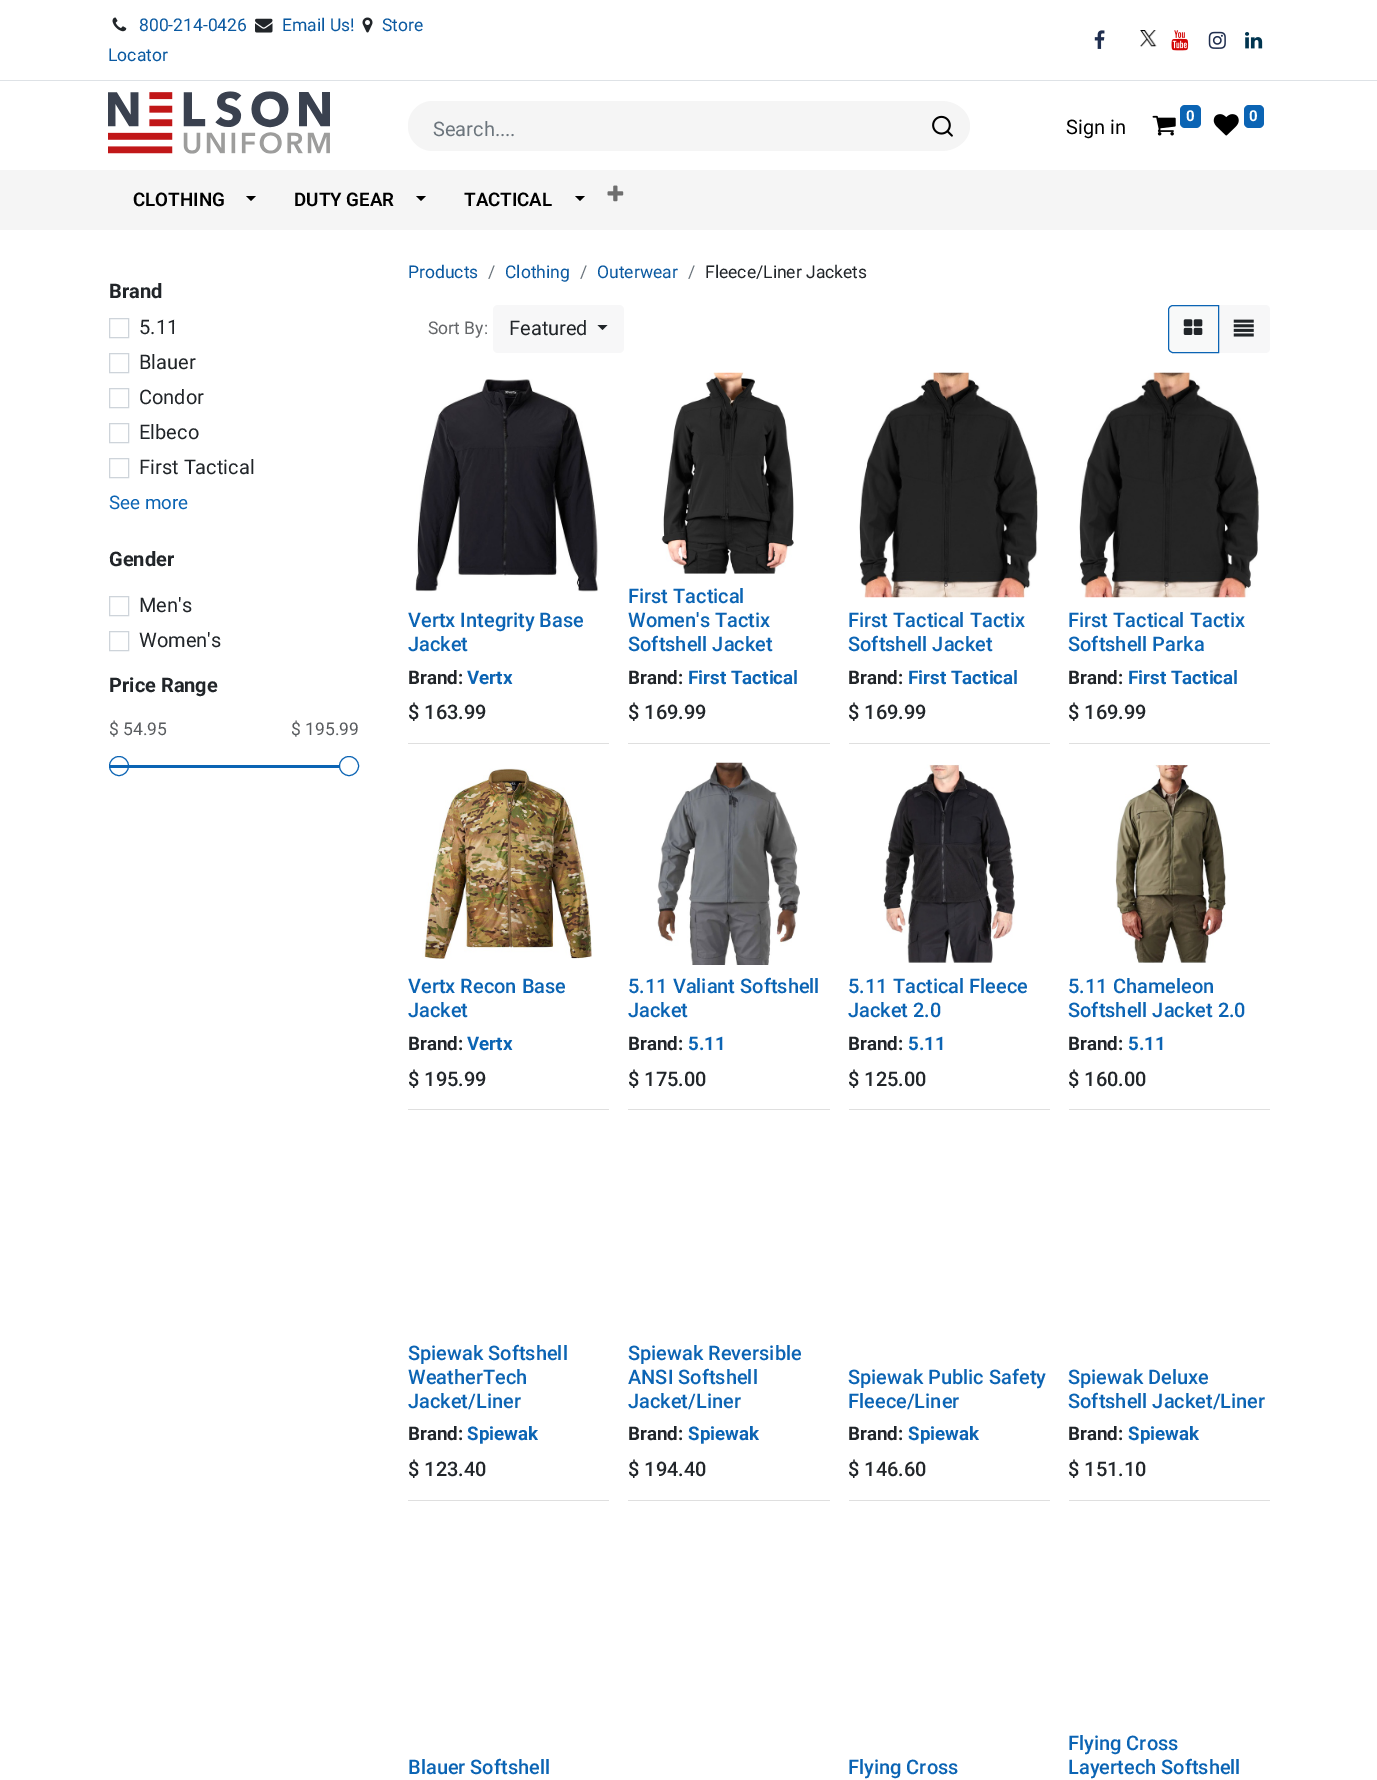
%!PS
<< /PageSize [1377 1780] >> setpagedevice
/m/moveto load def
/l/rlineto load def
/c/rcurveto load def
/z/closepath load def
/f/fill load def
/s/stroke load def
/q/gsave load def
/Q_/grestore load def
/C { dup -16 bitshift 255 div exch dup -8 bitshift 255 and 255 div exch 255 and 255 div setrgbcolor } def
/F { [ exch dup neg 0 0 3 -1 roll 0 0 ] selectfont } def
/T { moveto show } def
/R { rectfill } def
/O { newpath 0 360 arc closepath } def
/Q { 5 dict begin { /r /h /w /y /x } { exch def } forall
  x r add y moveto x w add y 2 copy h add r arct x w add y h add x 1 index r arct
  x y h add x y r arct x y 2 copy exch w add exch r arct closepath end } def
/I { 5 dict begin { /h /w /y /x /name } { exch def } forall
  gsave x y translate w h scale
  w h 8 [w 0 0 h 0 0] name (r) file false 3 colorimage grestore end } def
0 1780 translate 1 -1 scale
4 setmiterlimit
16#FFFFFF C
0 0 1377 1780 R
16#DEE2E6 C
0 80 1377 1 R
(1.rgb) 112 17 15 15 I
/Roboto-Regular 17.5 F
16#0A59A1 C
(800-214-0426) 139 31 T
(2.rgb) 255 18 18 15 I
(Email Us!) 282 31 T
(3.rgb) 362 17 11 16 I
(Store) 382 31 T
(Locator) 108 61 T
(4.rgb) 1094 30 11 19 I
(5.rgb) 1140 30 17 17 I
(6.rgb) 1171 30 18 21 I
(7.rgb) 1208 31 18 18 I
(8.rgb) 1245 32 18 17 I
(9.rgb) 108 91 222 63 I
16#F5F5F5 C
433 101 m 478 0 l 0 50 l -478 0 l -14 0 -25 -11 -25 -25 c 0 -14 11 -25 25 -25 c z f
/Roboto-Regular 20 F
16#6C757D C
(Search....) 433 136 T
16#F5F5F5 C
911 101 m 30 0 l 16 0 29 11 29 25 c 0 14 -13 25 -29 25 c -30 0 l z f
(10.rgb) 932 115 21 22 I
(11.rgb) 1152 115 24 21 I
16#0B64B4 C
1180 105 21 23 5 Q f
/Roboto-Bold 15 F
16#FFFFFF C
(0) 1186 121 T
(12.rgb) 1213 114 26 22 I
16#0B64B4 C
1244 105 20 23 5 Q f
16#FFFFFF C
(0) 1249 121 T
/Roboto-Regular 20 F
16#000000 C
(Sign in) 1066 134 T
16#F5F5F5 C
0 170 1377 60 R
/Roboto-SemiBold 18.75 F
16#000000 C
(CLOTHING) 133 206 T
246 196 m 10 0 l -5 5 l z f
(DUTY GEAR) 294 206 T
416 196 m 10 0 l -5 5 l z f
(TACTICAL) 464 206 T
575 196 m 10 0 l -5 5 l z f
(13.rgb) 607 185 17 17 I
/Roboto-Bold 20 F
16#212529 C
(Brand) 109 298 T
16#CED4DA C
109.5 318.5 19 19 rectstroke
/Roboto-Regular 20 F
16#212529 C
(5.11) 139 334 T
16#CED4DA C
109.5 353.5 19 19 rectstroke
16#212529 C
(Blauer) 139 369 T
16#CED4DA C
109.5 388.5 19 19 rectstroke
16#212529 C
(Condor) 139 404 T
16#CED4DA C
109.5 423.5 19 19 rectstroke
16#212529 C
(Elbeco) 139 439 T
16#CED4DA C
109.5 458.5 19 19 rectstroke
16#212529 C
(First Tactical) 139 474 T
/Roboto-Regular 18.75 F
16#0B64B4 C
(See more) 109 509 T
/Roboto-Bold 20 F
16#212529 C
(Gender) 109 566 T
16#CED4DA C
109.5 596.5 19 19 rectstroke
/Roboto-Regular 20 F
16#212529 C
(Men's) 139 612 T
16#CED4DA C
109.5 631.5 19 19 rectstroke
16#212529 C
(Women's) 139 647 T
/Roboto-Bold 20 F
(Price Range) 109 692 T
/Roboto-Regular 17.5 F
16#595C5F C
($ 54.95) 109 735 T
($ 195.99) 291 735 T
16#0B64B4 C
119 766 9.5 O s
109 765 250 3 1.5 Q f
16#FFFFFF C
349 766 9.5 O q f Q_
16#0B64B4 C
s
16#0A59A1 C
(Products) 408 278 T
16#6C757D C
(/) 488 278 T
16#0A59A1 C
(Clothing) 505 278 T
16#6C757D C
(/) 580 278 T
16#0A59A1 C
(Outerwear) 597 278 T
16#6C757D C
(/) 688 278 T
16#212529 C
(Fleece/Liner Jackets) 705 278 T
16#646669 C
(Sort By:) 428 334 T
16#F7F7F8 C
493 305 131 48 5 Q f
/Roboto-Regular 20 F
16#212529 C
(Featured) 509 335 T
597.5 325 m 10 0 l -5 5 l z f
16#F7F7F8 C
1218 305 m 47 0 l 3 0 5 2 5 5 c 0 38 l 0 3 -2 5 -5 5 c -47 0 l z f
16#F8F9F9 C
1173 305.5 m 45.5 0 l 0 47 l -45.5 0 l -2.5 0 -4.5 -2 -4.5 -4.5 c 0 -38 l 0 -2.5 2 -4.5 4.5 -4.5 c z q f Q_
16#0B64B4 C
s
(14.rgb) 1183 319 20 16 I
(15.rgb) 1233 319 21 18 I
16#DFDFDF C
408 743 201 1 R
(16.rgb) 415 379 184 213 I
/Roboto-Medium 20 F
16#0B64B4 C
(Vertx Integrity Base) 408 627 T
(Jacket) 408 651 T
/Roboto-Bold 18.75 F
16#212529 C
(Brand:) 408 684 T
16#0B64B4 C
(Vertx) 467 684 T
/Roboto-Medium 20 F
16#212529 C
($ 163.99) 408 719 T
16#DFDFDF C
628 743 202 1 R
(17.rgb) 661 372 133 202 I
16#0B64B4 C
(First Tactical) 628 603 T
(Women's Tactix) 628 627 T
(Softshell Jacket) 628 651 T
/Roboto-Bold 18.75 F
16#212529 C
(Brand:) 628 684 T
16#0B64B4 C
(First Tactical) 688 684 T
/Roboto-Medium 20 F
16#212529 C
($ 169.99) 628 719 T
16#DFDFDF C
849 743 201 1 R
(18.rgb) 859 372 179 226 I
16#0B64B4 C
(First Tactical Tactix) 848 627 T
(Softshell Jacket) 848 651 T
/Roboto-Bold 18.75 F
16#212529 C
(Brand:) 848 684 T
16#0B64B4 C
(First Tactical) 908 684 T
/Roboto-Medium 20 F
16#212529 C
($ 169.99) 848 719 T
16#DFDFDF C
1069 743 201 1 R
(19.rgb) 1079 372 181 226 I
16#0B64B4 C
(First Tactical Tactix) 1068 627 T
(Softshell Parka) 1068 651 T
/Roboto-Bold 18.75 F
16#212529 C
(Brand:) 1068 684 T
16#0B64B4 C
(First Tactical) 1128 684 T
/Roboto-Medium 20 F
16#212529 C
($ 169.99) 1068 719 T
16#DFDFDF C
408 1109 201 1 R
(20.rgb) 422 768 170 191 I
16#0B64B4 C
(Vertx Recon Base) 408 993 T
(Jacket) 408 1017 T
/Roboto-Bold 18.75 F
16#212529 C
(Brand:) 408 1050 T
16#0B64B4 C
(Vertx) 467 1050 T
/Roboto-Medium 20 F
16#212529 C
($ 195.99) 408 1086 T
16#DFDFDF C
628 1109 202 1 R
(21.rgb) 657 762 143 203 I
16#0B64B4 C
(5.11 Valiant Softshell) 628 993 T
(Jacket) 628 1017 T
/Roboto-Bold 18.75 F
16#212529 C
(Brand:) 628 1050 T
16#0B64B4 C
(5.11) 688 1050 T
/Roboto-Medium 20 F
16#212529 C
($ 175.00) 628 1086 T
16#DFDFDF C
849 1109 201 1 R
(22.rgb) 883 764 133 199 I
16#0B64B4 C
(5.11 Tactical Fleece) 848 993 T
(Jacket 2.0) 848 1017 T
/Roboto-Bold 18.75 F
16#212529 C
(Brand:) 848 1050 T
16#0B64B4 C
(5.11) 908 1050 T
/Roboto-Medium 20 F
16#212529 C
($ 125.00) 848 1086 T
16#DFDFDF C
1069 1109 201 1 R
(23.rgb) 1115 764 111 199 I
16#0B64B4 C
(5.11 Chameleon) 1068 993 T
(Softshell Jacket 2.0) 1068 1017 T
/Roboto-Bold 18.75 F
16#212529 C
(Brand:) 1068 1050 T
16#0B64B4 C
(5.11) 1128 1050 T
/Roboto-Medium 20 F
16#212529 C
($ 160.00) 1068 1086 T
16#DFDFDF C
408 1500 201 1 R
16#0B64B4 C
(Spiewak Softshell) 408 1360 T
(WeatherTech) 408 1384 T
(Jacket/Liner) 408 1408 T
/Roboto-Bold 18.75 F
16#212529 C
(Brand:) 408 1440 T
16#0B64B4 C
(Spiewak) 467 1440 T
/Roboto-Medium 20 F
16#212529 C
($ 123.40) 408 1476 T
16#DFDFDF C
628 1500 202 1 R
16#0B64B4 C
(Spiewak Reversible) 628 1360 T
(ANSI Softshell) 628 1384 T
(Jacket/Liner) 628 1408 T
/Roboto-Bold 18.75 F
16#212529 C
(Brand:) 628 1440 T
16#0B64B4 C
(Spiewak) 688 1440 T
/Roboto-Medium 20 F
16#212529 C
($ 194.40) 628 1476 T
16#DFDFDF C
849 1500 201 1 R
16#0B64B4 C
(Spiewak Public Safety) 848 1384 T
(Fleece/Liner) 848 1408 T
/Roboto-Bold 18.75 F
16#212529 C
(Brand:) 848 1440 T
16#0B64B4 C
(Spiewak) 908 1440 T
/Roboto-Medium 20 F
16#212529 C
($ 146.60) 848 1476 T
16#DFDFDF C
1069 1500 201 1 R
16#0B64B4 C
(Spiewak Deluxe) 1068 1384 T
(Softshell Jacket/Liner) 1068 1408 T
/Roboto-Bold 18.75 F
16#212529 C
(Brand:) 1068 1440 T
16#0B64B4 C
(Spiewak) 1128 1440 T
/Roboto-Medium 20 F
16#212529 C
($ 151.10) 1068 1476 T
16#0B64B4 C
(Blauer Softshell) 408 1774 T
(Flying Cross) 848 1774 T
(Flying Cross) 1068 1750 T
(Layertech Softshell) 1068 1774 T
showpage
